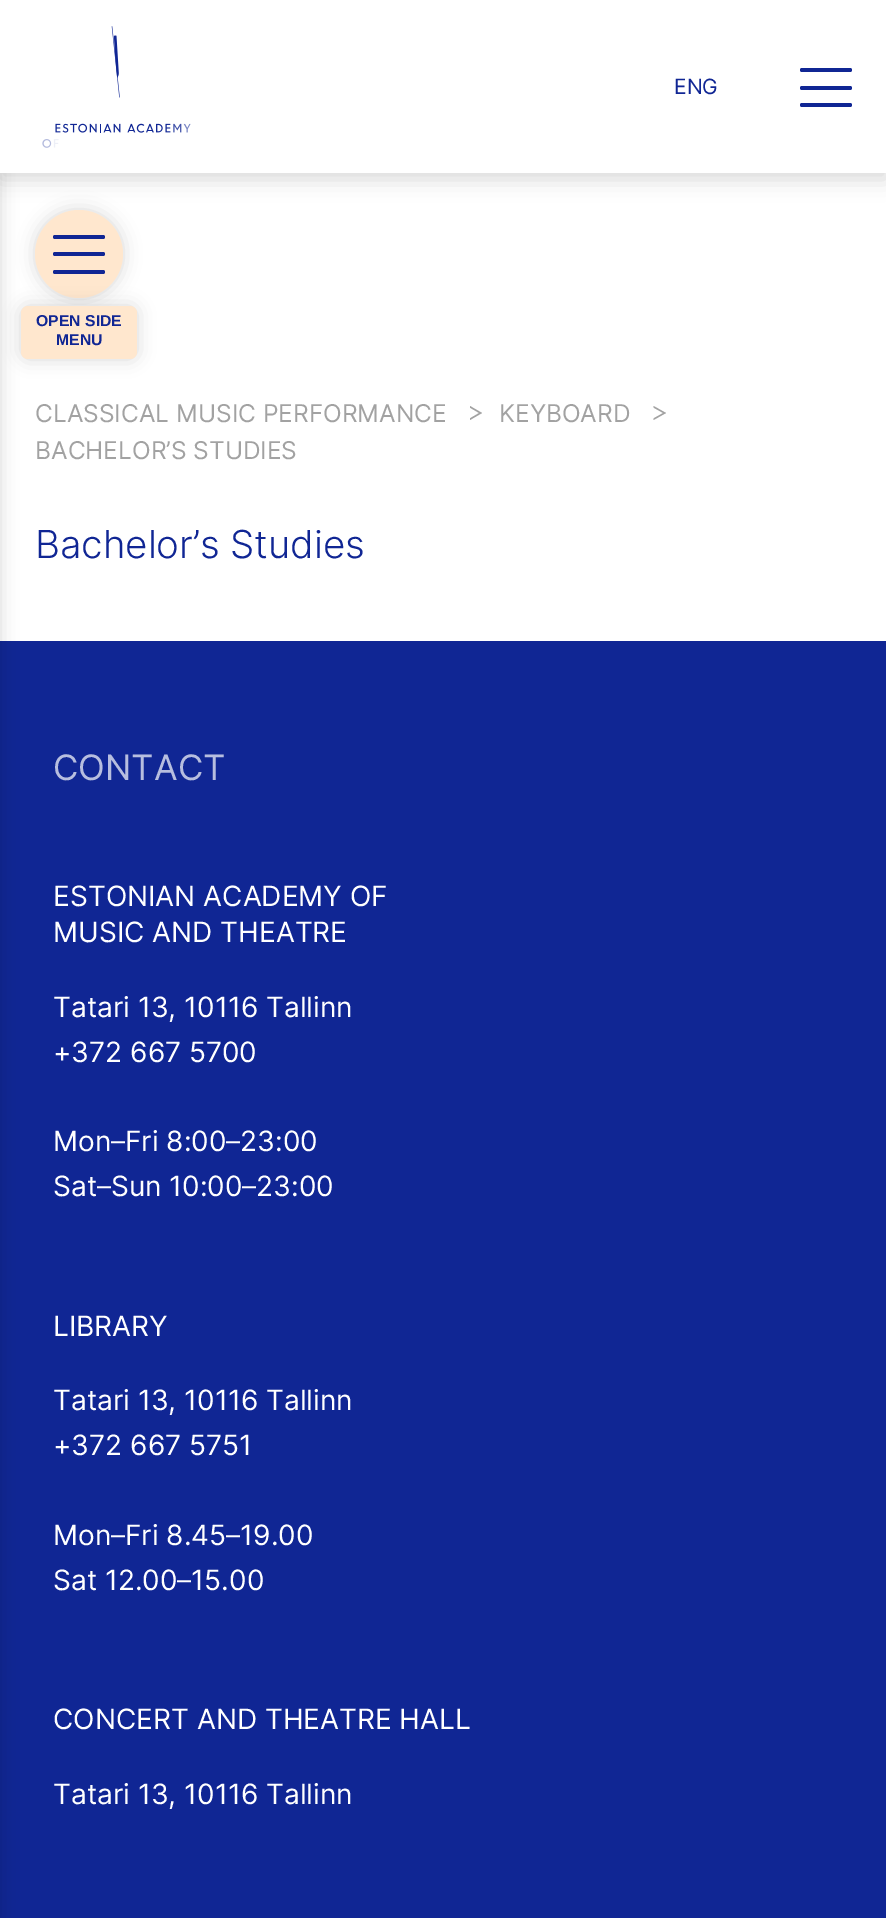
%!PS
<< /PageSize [886 1918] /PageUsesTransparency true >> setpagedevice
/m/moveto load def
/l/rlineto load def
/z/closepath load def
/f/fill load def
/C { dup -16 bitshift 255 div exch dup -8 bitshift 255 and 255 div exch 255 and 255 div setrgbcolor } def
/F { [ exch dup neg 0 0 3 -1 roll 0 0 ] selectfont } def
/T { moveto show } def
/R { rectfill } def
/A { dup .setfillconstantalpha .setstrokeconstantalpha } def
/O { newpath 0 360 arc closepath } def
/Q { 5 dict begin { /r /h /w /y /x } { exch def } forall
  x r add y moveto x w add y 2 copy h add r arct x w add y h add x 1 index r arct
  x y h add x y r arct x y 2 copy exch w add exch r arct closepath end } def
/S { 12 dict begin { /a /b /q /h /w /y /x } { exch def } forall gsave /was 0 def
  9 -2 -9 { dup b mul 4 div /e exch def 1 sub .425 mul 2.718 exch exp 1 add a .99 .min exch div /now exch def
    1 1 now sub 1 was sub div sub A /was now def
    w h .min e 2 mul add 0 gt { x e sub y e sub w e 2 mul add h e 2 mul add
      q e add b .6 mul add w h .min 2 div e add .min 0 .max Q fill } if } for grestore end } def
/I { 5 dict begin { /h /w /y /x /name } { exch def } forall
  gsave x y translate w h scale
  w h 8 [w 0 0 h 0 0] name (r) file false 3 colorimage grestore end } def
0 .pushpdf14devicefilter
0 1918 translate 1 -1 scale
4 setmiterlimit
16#FFFFFF C
0 0 886 1918 R
16#000000 C
35 210 88 88 44 9 .15 S
16#FFE7CE C
79 254 44 O f
16#000000 C
0 5 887 174 0 10.5 .15 S
16#102694 C
0 641 886 1277 R
16#000000 C
-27 0 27 1918 0 9 .15 S
16#FFFFFF C
0 0 886 173 R
(1.rgb) 42 26 149 122 I
/Inter-Regular 21 F
16#102694 C
(ENG) 674 94 T
800 68 52 4 2 Q f
800 86 52 4 2 Q f
800 103 52 4 2 Q f
53 235 52 4 2 Q f
53 252 52 4 2 Q f
53 270 52 4 2 Q f
16#000000 C
21 306 116 53 7 9 .15 S
16#FFE7CE C
21 306 116 53 7 Q f
/LiberationSans-Bold 15.75 F
16#102694 C
(OPEN SIDE) 36 326 T
(MENU) 56 345 T
/Inter-Light 38.5 F
(Bachelor’s Studies) 35 558 T
/Inter-Regular 24.5 F
16#A2A2A2 C
(CLASSICAL MUSIC PERFORMANCE) 35 422 T
470 420 m 0 -14 l 12 7 l z f
16#FFFFFF C
466.5 420 m 0 -14 l 12 7 l z f
16#A2A2A2 C
(KEYBOARD) 499 422 T
653.5 420 m 0 -14 l 12.5 7 l z f
16#FFFFFF C
650 420 m 0 -14 l 12.5 7 l z f
16#A2A2A2 C
(BACHELOR’S STUDIES) 35 459 T
/Inter-Regular 35 F
16#B7BEDF C
(CONTACT) 53 780 T
/Inter-Regular 28 F
16#FFFFFF C
(ESTONIAN ACADEMY OF) 53 906 T
(MUSIC AND THEATRE) 53 942 T
(Tatari 13, 10116 Tallinn) 53 1017 T
(+372 667 5700) 53 1062 T
(Mon–Fri 8:00–23:00) 53 1151 T
(Sat–Sun 10:00–23:00) 53 1196 T
(LIBRARY) 53 1336 T
(Tatari 13, 10116 Tallinn) 53 1410 T
(+372 667 5751) 53 1455 T
(Mon–Fri 8.45–19.00) 53 1545 T
(Sat 12.00–15.00) 53 1590 T
(CONCERT AND THEATRE HALL) 53 1729 T
(Tatari 13, 10116 Tallinn) 53 1804 T
.poppdf14devicefilter showpage
